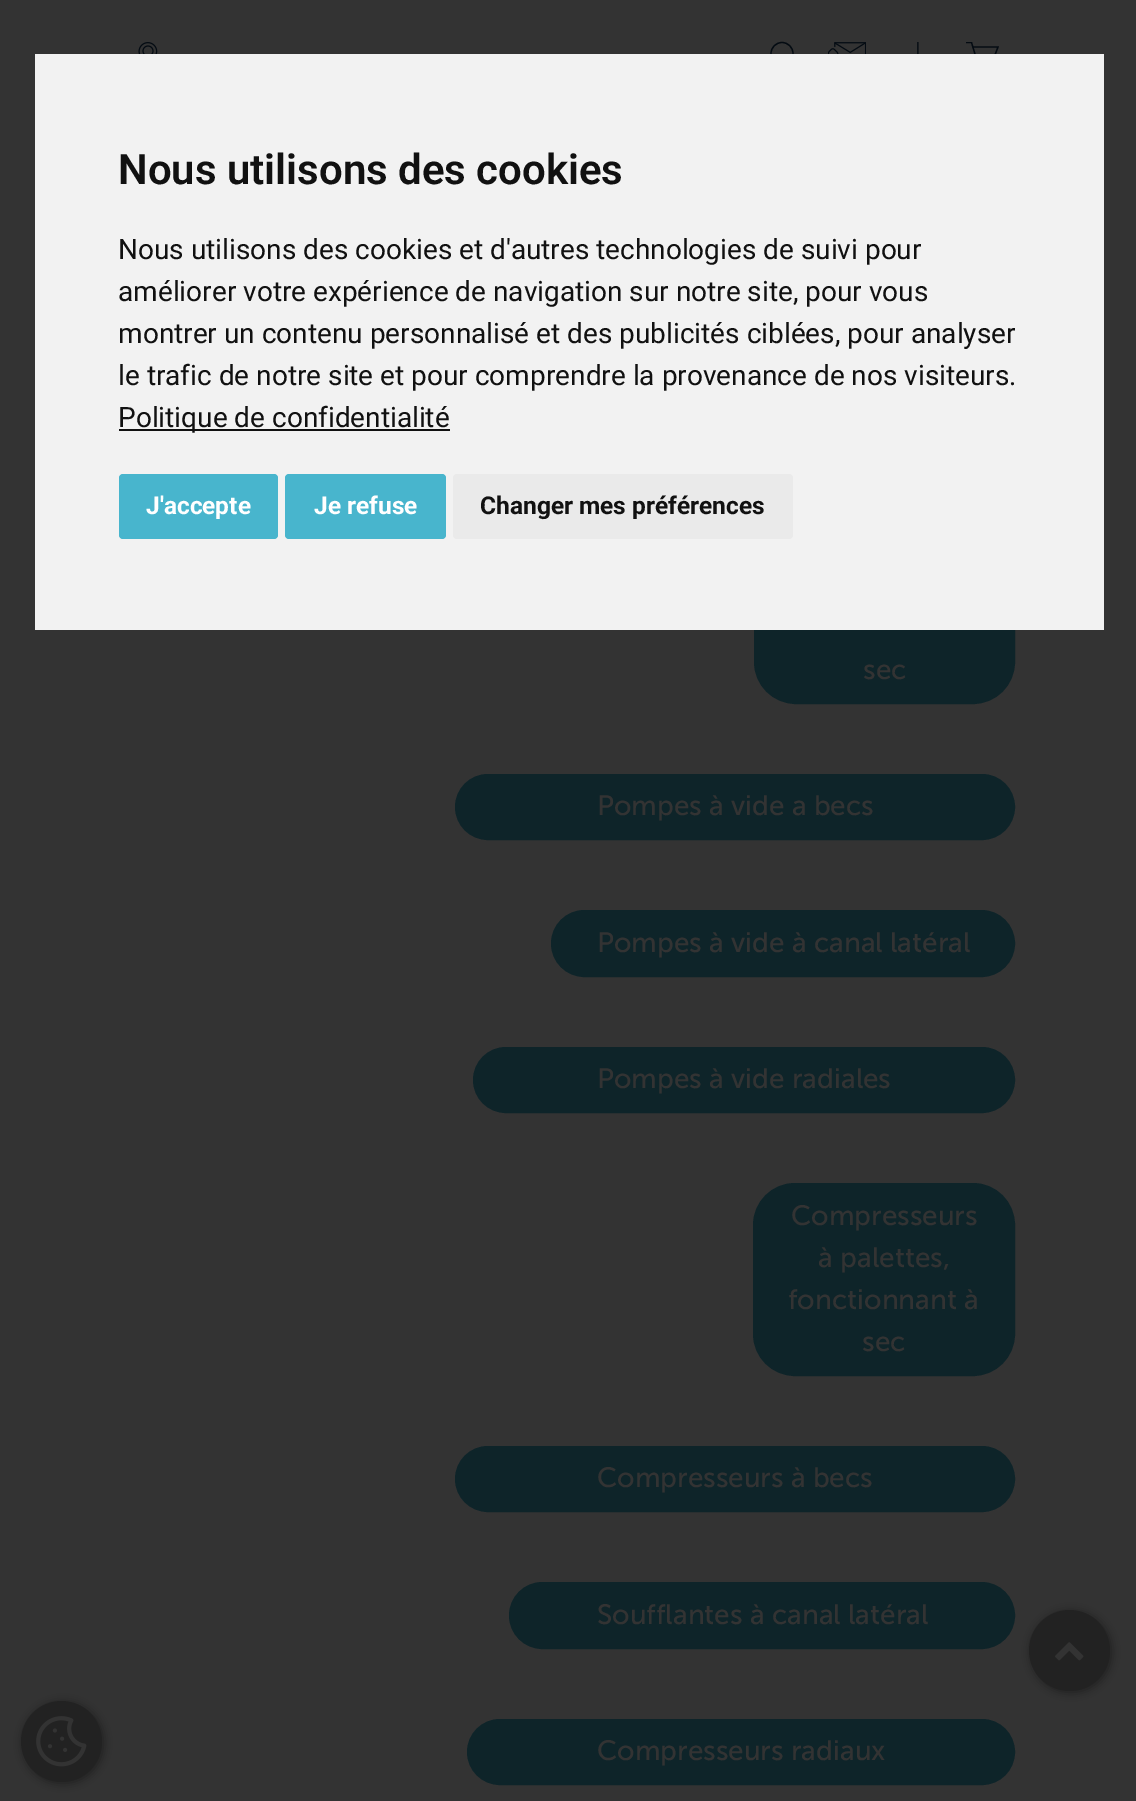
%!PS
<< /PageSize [1136 1801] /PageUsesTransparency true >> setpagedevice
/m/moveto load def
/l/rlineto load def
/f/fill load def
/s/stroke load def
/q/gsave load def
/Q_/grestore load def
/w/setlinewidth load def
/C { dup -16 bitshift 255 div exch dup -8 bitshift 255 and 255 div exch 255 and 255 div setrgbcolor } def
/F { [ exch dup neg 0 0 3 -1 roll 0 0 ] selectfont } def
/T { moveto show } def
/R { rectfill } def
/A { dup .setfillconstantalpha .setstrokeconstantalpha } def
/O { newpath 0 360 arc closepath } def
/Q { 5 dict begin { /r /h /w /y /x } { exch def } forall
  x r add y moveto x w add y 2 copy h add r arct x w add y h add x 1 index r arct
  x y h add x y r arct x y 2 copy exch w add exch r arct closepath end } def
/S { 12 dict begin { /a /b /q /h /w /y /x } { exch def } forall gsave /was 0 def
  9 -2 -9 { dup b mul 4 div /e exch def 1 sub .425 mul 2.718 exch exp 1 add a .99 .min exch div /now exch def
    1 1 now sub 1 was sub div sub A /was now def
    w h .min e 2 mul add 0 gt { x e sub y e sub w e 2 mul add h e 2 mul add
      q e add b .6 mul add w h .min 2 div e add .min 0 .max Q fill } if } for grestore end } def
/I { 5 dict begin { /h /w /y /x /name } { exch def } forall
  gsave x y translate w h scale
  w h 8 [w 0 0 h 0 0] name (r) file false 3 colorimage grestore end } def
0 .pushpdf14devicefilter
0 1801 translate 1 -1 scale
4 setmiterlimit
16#333333 C
0 0 1136 1801 R
(1.rgb) 138 42 20 12 I
16#040B12 C
1.3 w
782 53.5 11 O s
(2.rgb) 828 42 38 12 I
(3.rgb) 917 42 2 12 I
q
966 42 33 28 rectclip
966 42.5 m 5.5 0 l 6.5 21.5 l 15.5 0 l s
Q_
972.5 47 m 25.5 0 l -4 10.5 l -17.5 0 l s
16#0E2429 C
755 512 259 191 41 Q q f Q_
2 w
s
16#F2F2F2 C
35 54 1069 576 R
/Roboto-SemiBold 42 F
16#111111 C
(Nous utilisons des cookies) 118 184 T
/Roboto-Regular 28 F
(Nous utilisons des cookies et d'autres technologies de suivi pour) 118 259 T
(améliorer votre expérience de navigation sur notre site, pour vous) 118 301 T
(montrer un contenu personnalisé et des publicités ciblées, pour analyser) 118 343 T
(le trafic de notre site et pour comprendre la provenance de nos visiteurs.) 118 385 T
119 429 331 2 R
(Politique de confidentialité) 118 427 T
16#48B5CD C
119 474 159 65 4 Q f
/Roboto-Bold 24.5 F
16#FFFFFF C
(J'accepte) 146 514 T
16#48B5CD C
285 474 161 65 4 Q f
16#FFFFFF C
(Je refuse) 314 514 T
16#EAEAEA C
453 474 340 65 4 Q f
16#111111 C
(Changer mes préférences) 480 514 T
/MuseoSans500-Regular 28 F
16#333333 C
(sec) 863 679 T
16#0E2429 C
456 775 558 64 32 Q q f Q_
s
16#333333 C
(Pompes à vide a becs) 597 815 T
16#0E2429 C
552 911 462 65 32.5 Q q f Q_
s
16#333333 C
(Pompes à vide à canal latéral) 597 952 T
16#0E2429 C
474 1048 540 64 32 Q q f Q_
s
16#333333 C
(Pompes à vide radiales) 597 1088 T
16#0E2429 C
754 1184 260 191 41 Q q f Q_
s
16#333333 C
(Compresseurs) 791 1225 T
(à palettes,) 818 1267 T
(fonctionnant à) 788 1309 T
(sec) 862 1351 T
16#0E2429 C
456 1447 558 64 32 Q q f Q_
s
16#333333 C
(Compresseurs à becs) 597 1487 T
16#0E2429 C
510 1583 504 65 32.5 Q q f Q_
s
16#333333 C
(Soufflantes à canal latéral) 597 1624 T
16#0E2429 C
468 1720 546 64 32 Q q f Q_
s
16#333333 C
(Compresseurs radiaux) 597 1760 T
16#1D1D1D C
1031 1612 80 80 40 4.5 1 S
16#222222 C
1069.5 1650.5 40.5 O f
(4.rgb) 1055 1642 29 19 I
16#1D1D1D C
23 1703 80 80 40 4.5 1 S
16#222222 C
61.5 1741.5 40.5 O f
(5.rgb) 36 1716 51 51 I
.poppdf14devicefilter showpage
